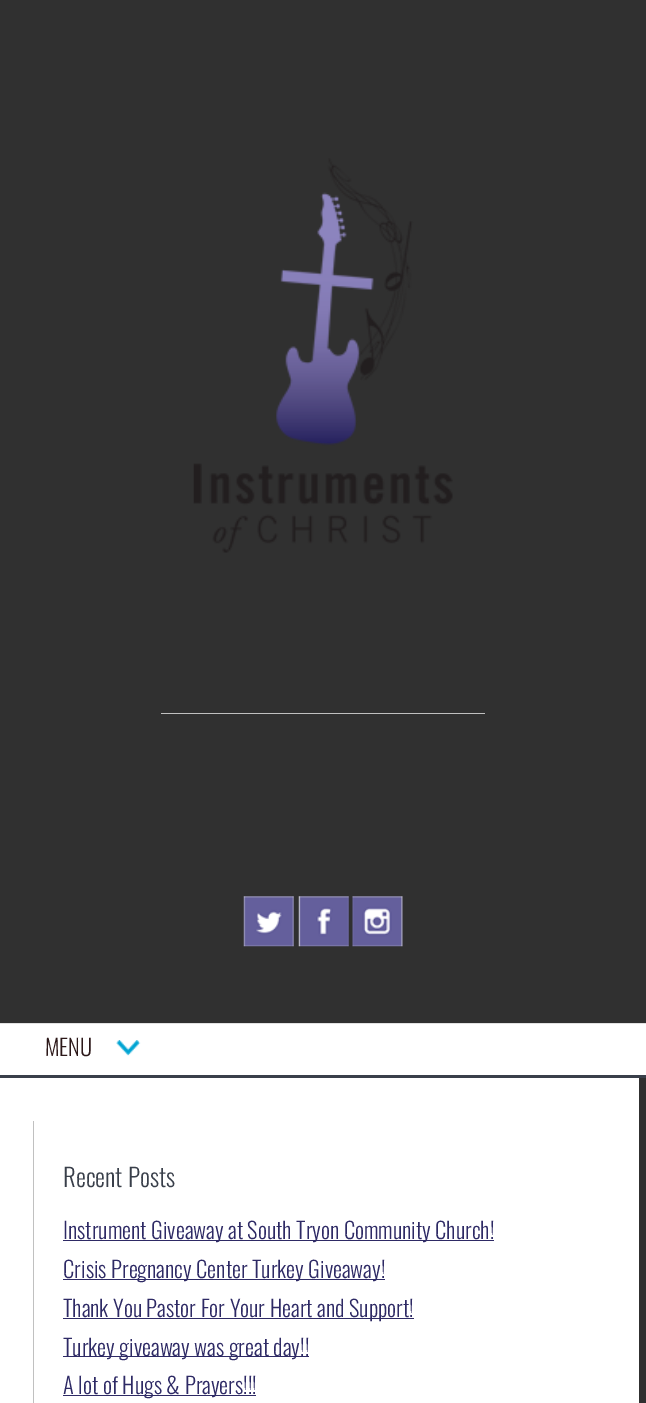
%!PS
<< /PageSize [646 1403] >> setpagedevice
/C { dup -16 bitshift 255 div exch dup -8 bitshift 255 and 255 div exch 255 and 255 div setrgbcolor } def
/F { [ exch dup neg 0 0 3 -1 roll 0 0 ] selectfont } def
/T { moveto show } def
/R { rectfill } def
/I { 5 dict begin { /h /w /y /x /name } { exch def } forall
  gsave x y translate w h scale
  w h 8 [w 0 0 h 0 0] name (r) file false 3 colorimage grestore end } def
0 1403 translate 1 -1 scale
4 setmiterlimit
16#303030 C
0 0 646 1403 R
(1.rgb) 193 158 260 395 I
16#C0C0C0 C
161 713 324 1 R
(2.rgb) 243 896 51 51 I
(3.rgb) 298 896 51 51 I
(4.rgb) 352 896 51 51 I
16#FFFFFF C
0 1024 646 51 R
16#E1E1E1 C
0 1023 646 1 R
16#393F4A C
0 1075 646 3 R
/Oswald-Light 22.5 F
16#2C1819 C
(MENU) 45 1056 T
(5.rgb) 116 1040 25 16 I
16#FFFFFF C
0 1078 639 325 R
16#C0C0C0 C
33 1121 1 282 R
/Oswald-Light 25 F
16#393F4A C
(Recent Posts) 63 1187 T
16#2E2A65 C
63 1240 431 1 R
/Oswald-Light 22.5 F
(Instrument Giveaway at South Tryon Community Church!) 63 1239 T
63 1279 322 1 R
(Crisis Pregnancy Center Turkey Giveaway!) 63 1278 T
63 1318 351 1 R
(Thank You Pastor For Your Heart and Support!) 63 1317 T
63 1356 246 1 R
(Turkey giveaway was great day!!) 63 1356 T
63 1395 193 1 R
(A lot of Hugs & Prayers!!!) 63 1394 T
showpage
